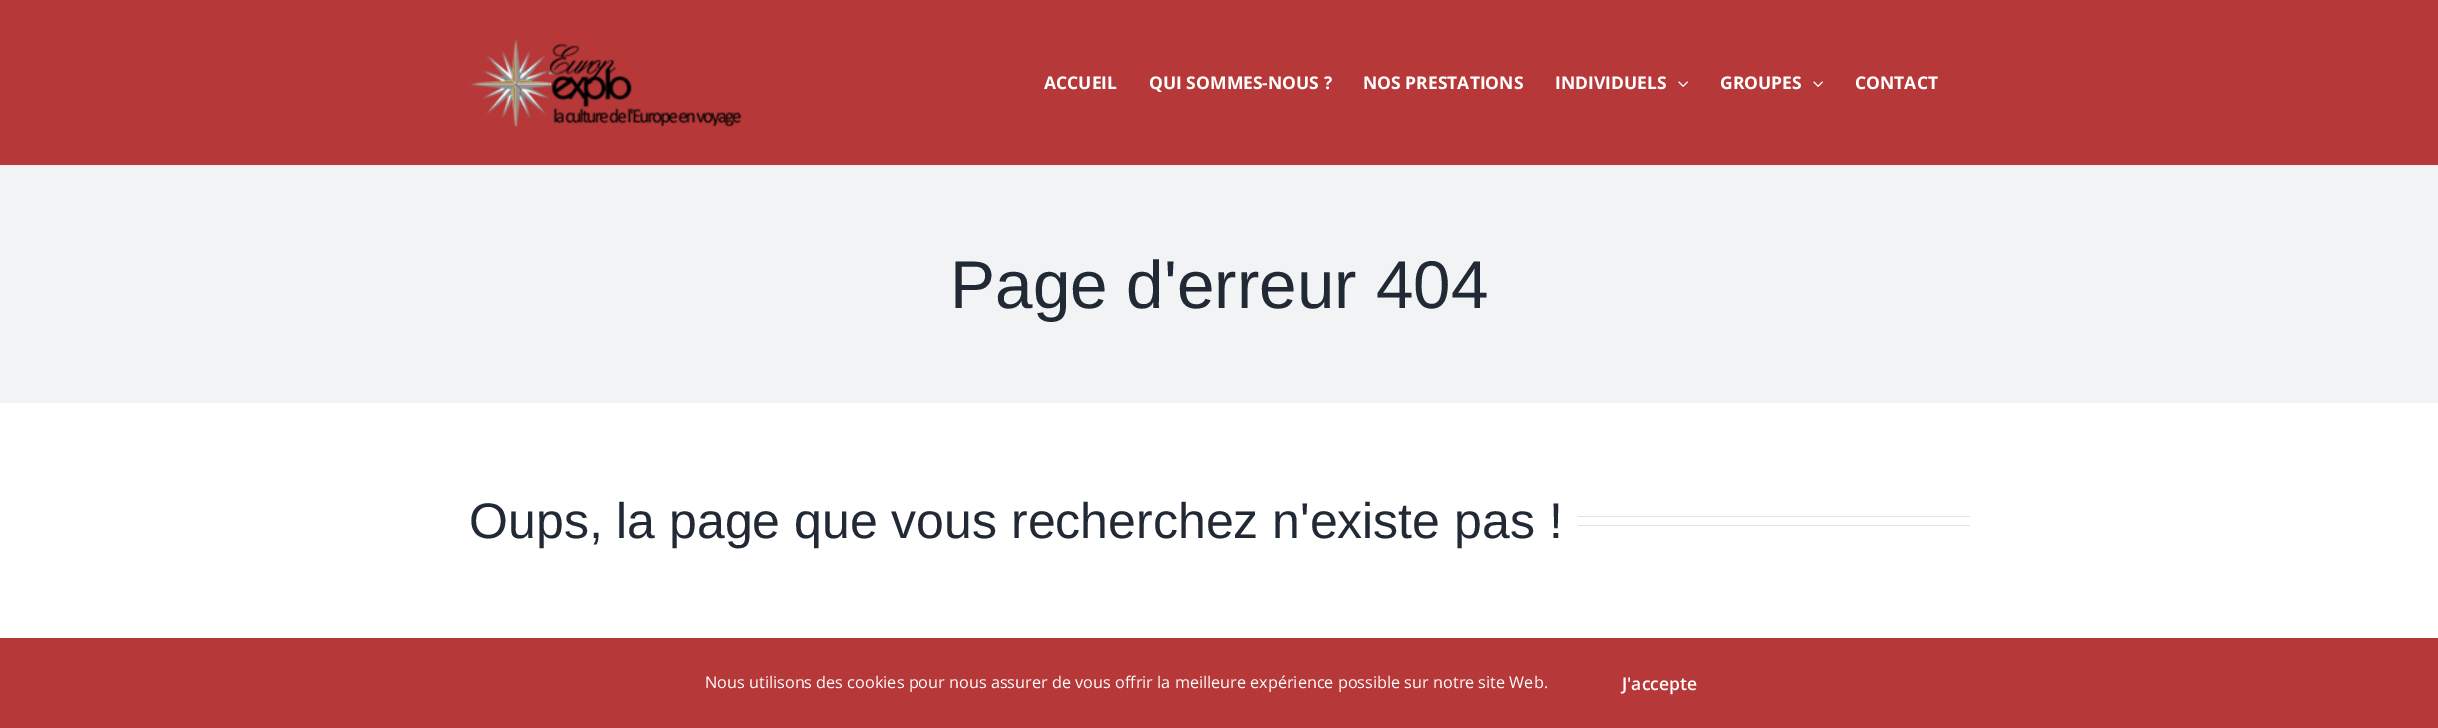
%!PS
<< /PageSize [2438 728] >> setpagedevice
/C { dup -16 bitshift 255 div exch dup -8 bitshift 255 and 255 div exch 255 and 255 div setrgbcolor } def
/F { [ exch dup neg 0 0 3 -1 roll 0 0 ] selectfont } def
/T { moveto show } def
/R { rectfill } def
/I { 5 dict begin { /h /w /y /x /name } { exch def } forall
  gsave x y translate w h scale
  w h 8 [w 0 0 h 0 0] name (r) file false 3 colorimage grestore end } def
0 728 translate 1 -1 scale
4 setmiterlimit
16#FFFFFF C
0 0 2438 728 R
16#B73839 C
0 0 2438 165 R
(1.rgb) 470 39 272 88 I
/OpenSans-Bold 17.5 F
16#FFFFFF C
(ACCUEIL) 1044 89 T
(QUI SOMMES-NOUS ?) 1149 89 T
(NOS PRESTATIONS) 1363 89 T
(INDIVIDUELS) 1555 89 T
(2.rgb) 1678 81 10 6 I
(GROUPES) 1720 89 T
(2.rgb) 1813 81 10 6 I
(CONTACT) 1855 89 T
16#F2F3F5 C
0 165 2438 238 R
/LiberationSans-Regular 67.5 F
16#212934 C
(Page d'erreur 404) 950 308 T
/LiberationSans-Regular 50 F
(Oups, la page que vous recherchez n'existe pas !) 469 538 T
16#E2E2E2 C
1578 516 392 1 R
1578 525 392 1 R
16#B73839 C
0 638 2438 90 R
/OpenSans-Regular 16.25 F
16#FFFFFF C
(Nous utilisons des cookies pour nous assurer de vous offrir la meilleure expérience possible sur notre site Web.) 705 688 T
/OpenSans-SemiBold 17.5 F
(J'accepte) 1622 690 T
showpage
